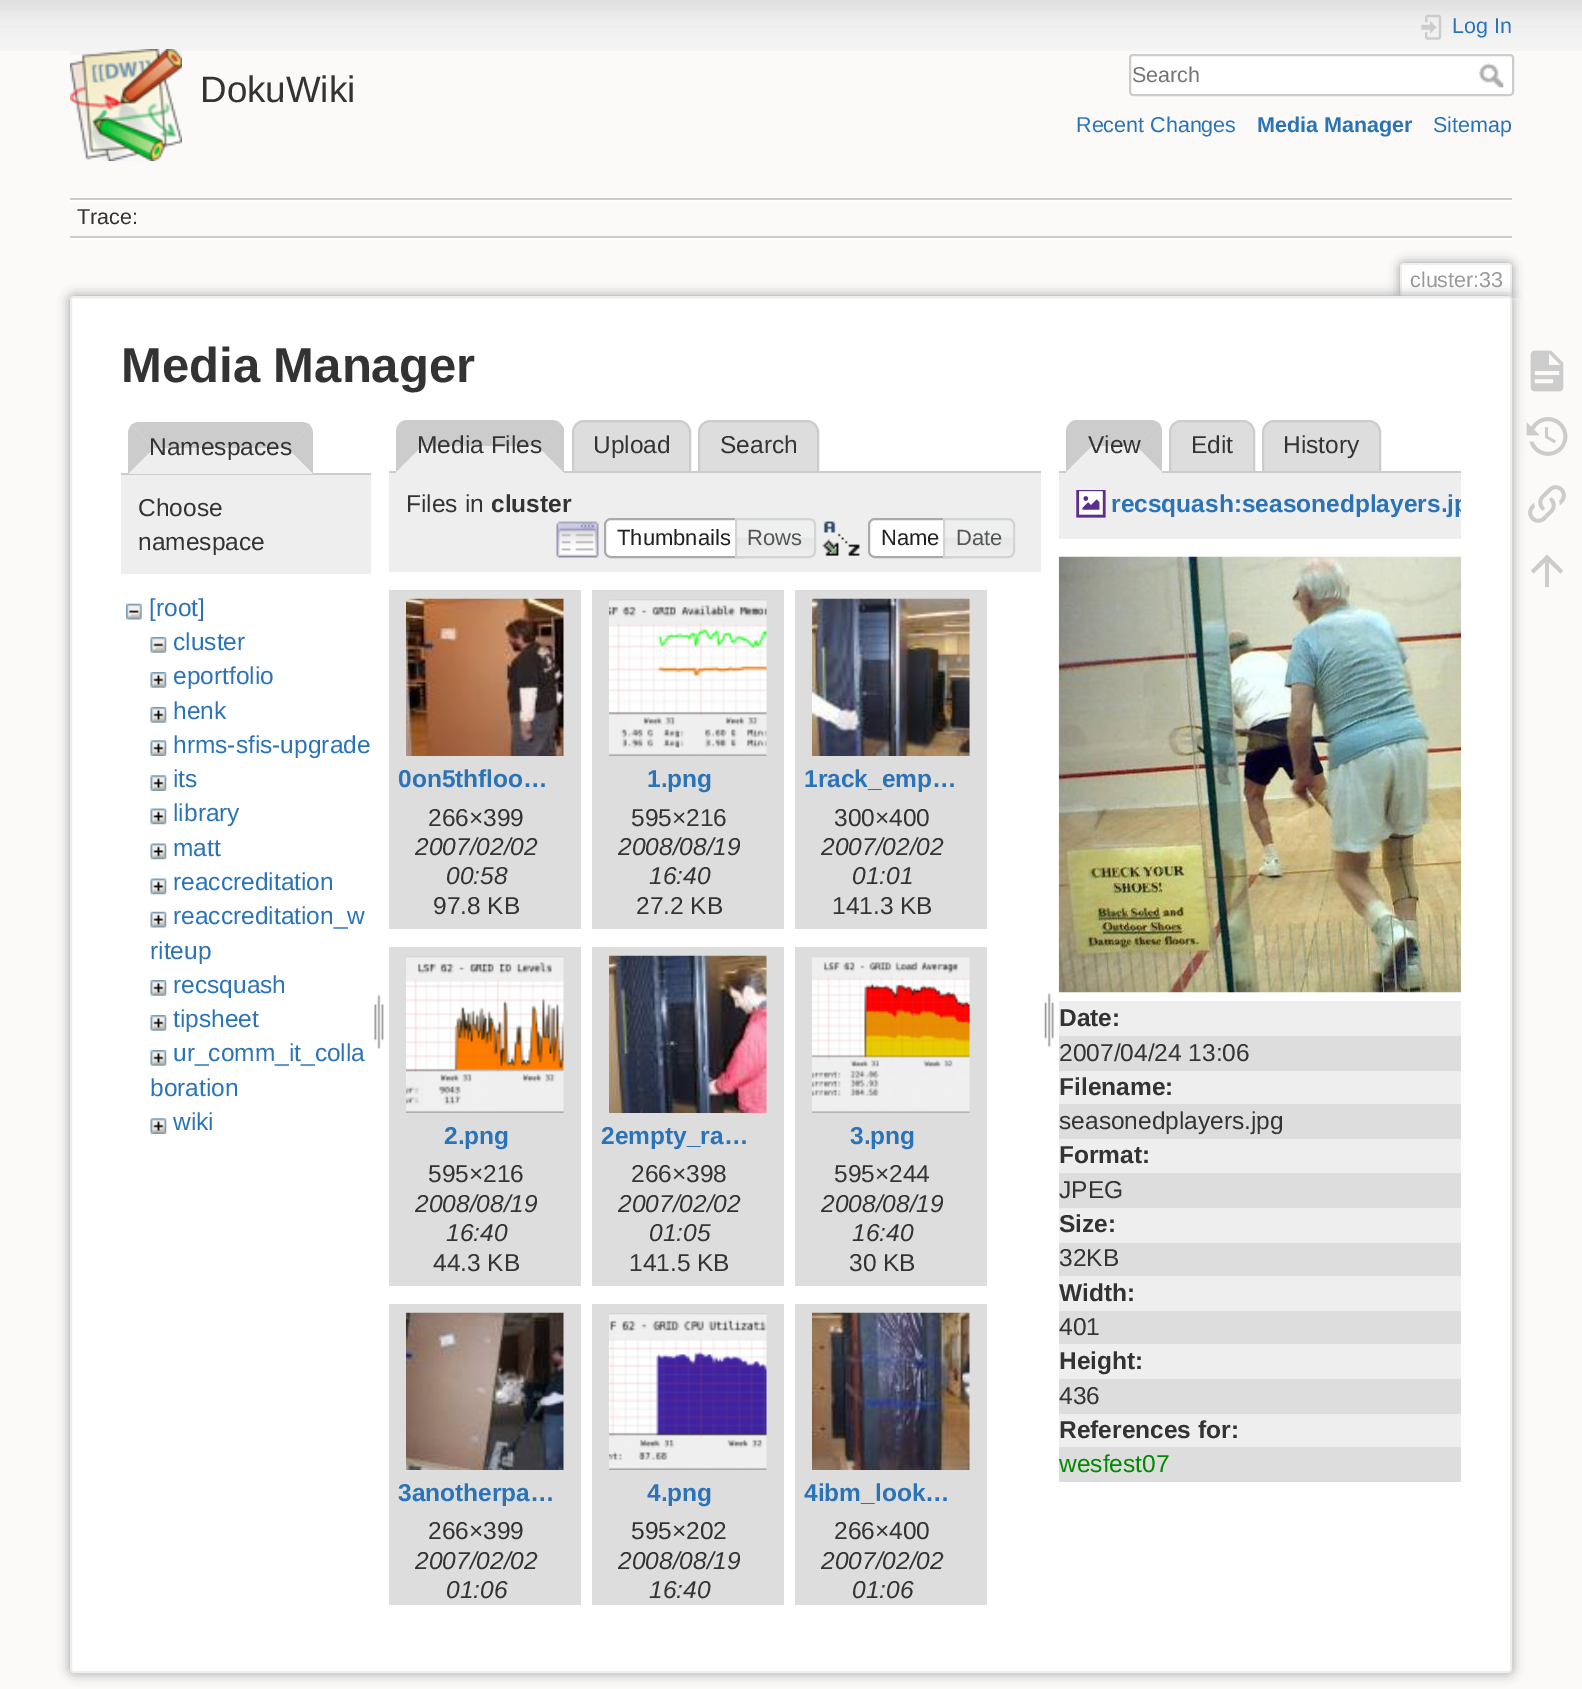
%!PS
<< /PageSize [1582 1689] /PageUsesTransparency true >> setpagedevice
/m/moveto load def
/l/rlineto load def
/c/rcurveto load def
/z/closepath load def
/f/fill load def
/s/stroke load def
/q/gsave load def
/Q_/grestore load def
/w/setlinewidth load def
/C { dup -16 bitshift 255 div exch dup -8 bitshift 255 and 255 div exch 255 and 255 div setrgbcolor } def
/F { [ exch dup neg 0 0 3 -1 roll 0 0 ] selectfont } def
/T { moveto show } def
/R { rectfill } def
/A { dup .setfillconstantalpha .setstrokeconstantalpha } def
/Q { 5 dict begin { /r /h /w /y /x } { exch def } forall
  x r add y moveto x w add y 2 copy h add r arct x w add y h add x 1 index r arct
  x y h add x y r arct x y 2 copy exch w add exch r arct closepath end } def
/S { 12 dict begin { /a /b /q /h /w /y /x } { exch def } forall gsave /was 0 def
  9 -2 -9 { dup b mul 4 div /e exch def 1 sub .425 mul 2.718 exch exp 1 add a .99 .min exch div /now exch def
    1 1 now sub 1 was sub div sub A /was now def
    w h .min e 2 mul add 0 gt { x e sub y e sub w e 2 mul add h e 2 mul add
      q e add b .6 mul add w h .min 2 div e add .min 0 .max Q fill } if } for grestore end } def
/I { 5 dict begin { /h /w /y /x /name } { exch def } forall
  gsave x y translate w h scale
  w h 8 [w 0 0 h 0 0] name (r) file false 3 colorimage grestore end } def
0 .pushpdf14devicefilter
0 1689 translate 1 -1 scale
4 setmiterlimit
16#FBFAF9 C
0 0 1582 1689 R
(1.rgb) 0 0 1582 51 I
(2.rgb) 70 49 112 112 I
/LiberationSans-Regular 36.75 F
16#333333 C
(DokuWiki) 200 102 T
(3.rgb) 1421 14 21 26 I
/LiberationSans-Regular 21.5 F
16#2B73B7 C
(Log In) 1452 33 T
16#FFFFFF C
1130 55 383 40 3 Q q f Q_
16#CCCCCC C
2 w
s
16#757575 C
(Search) 1132 82 T
(4.rgb) 1479 63 25 25 I
16#2B73B7 C
(Recent Changes) 1076 132 T
/LiberationSans-Bold 21.5 F
(Media Manager) 1257 132 T
/LiberationSans-Regular 21.5 F
(Sitemap) 1433 132 T
16#CCCCCC C
70 198 1442 2 R
16#FFFFFF C
70 238 1442 2 R
70 200 1442 2 R
16#CCCCCC C
70 236 1442 2 R
16#333333 C
(Trace:) 77 224 T
q
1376 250 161 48 rectclip
16#999999 C
1400 263 112 35 4 5.5 1 S
Q_
16#FFFFFF C
1404 264 m 104 0 l 1 0 2 1 2 2 c 0 32 l -108 0 l 0 -32 l 0 -1 1 -2 2 -2 c z f
16#EEEEEE C
1402 263 108 2 R
1510 264 2 34 R
1400 264 2 34 R
16#999999 C
(cluster:33) 1410 287 T
70 296 1442 1377 4 6 1 S
16#FFFFFF C
71 297 1440 1375 3 Q q f Q_
16#EEEEEE C
s
/LiberationSans-Bold 49 F
16#333333 C
(Media Manager) 121 382 T
16#CCCCCC C
140 422 m -4 0 -6 1 -9 3 c 23 23 l 133 0 l 23 -23 l -2 -2 -6 -3 -9 -3 c z f
121 473 250 2 R
313 474 m 0 -40 l 0 -4 -1 -6 -3 -9 c -23 23 l z f
16#EEEEEE C
313 474 m -26 -26 l -133 0 l -26 26 l z f
16#CCCCCC C
131 425 m -2 3 -3 5 -3 9 c 0 40 l 26 -26 l z f
/LiberationSans-Regular 24.5 F
16#333333 C
(Namespaces) 149 455 T
16#EEEEEE C
121 475 250 99 R
16#333333 C
(Choose) 138 516 T
(namespace) 138 550 T
(5.rgb) 126 603 16 17 I
16#2B73B7 C
([root]) 149 616 T
(6.rgb) 150 637 17 16 I
(cluster) 173 650 T
(7.rgb) 150 672 17 16 I
(eportfolio) 173 684 T
(7.rgb) 150 707 17 16 I
(henk) 173 719 T
(8.rgb) 150 740 17 16 I
(hrms-sfis-upgrade) 173 753 T
(8.rgb) 150 775 17 16 I
(its) 173 787 T
(9.rgb) 150 808 17 17 I
(library) 173 821 T
(9.rgb) 150 843 17 17 I
(matt) 173 856 T
(9.rgb) 150 878 17 17 I
(reaccreditation) 173 890 T
(10.rgb) 150 911 17 17 I
(reaccreditation_w) 173 924 T
(riteup) 150 959 T
(7.rgb) 150 980 17 16 I
(recsquash) 173 993 T
(7.rgb) 150 1015 17 16 I
(tipsheet) 173 1027 T
(7.rgb) 150 1050 17 16 I
(ur_comm_it_colla) 173 1061 T
(boration) 150 1096 T
(8.rgb) 150 1118 17 16 I
(wiki) 173 1130 T
(11.rgb) 374 994 10 55 I
16#DDDDDD C
584 421 m 95 0 l 6 0 11 5 11 11 c 0 40 l -117 0 l 0 -40 l 0 -6 5 -11 11 -11 c z q f Q_
16#CCCCCC C
s
16#DDDDDD C
710 421 m 97 0 l 6 0 11 5 11 11 c 0 40 l -119 0 l 0 -40 l 0 -6 5 -11 11 -11 c z q f Q_
16#CCCCCC C
s
389 471 652 2 R
16#EEEEEE C
408 420 m 144 0 l 6.5 0 12 5.5 12 12 c 0 41 l -168 0 l 0 -41 l 0 -6.5 5.5 -12 12 -12 c z f
16#CCCCCC C
408 420 m 143 0 l 3 0 7 1 9 3 c -23 23 l -115 0 l -23 -22 l 2 -3 5 -4 9 -4 c z f
560 423 m -23 23 l 26 26 l 1 0 l 0 -43 l -1 -2 -2 -4 -4 -6 c z f
16#EEEEEE C
563 472 m -26 -26 l -115 0 l -26 26 l z f
16#CCCCCC C
399 424 m -2 2 -3 5 -3 8 c 0 40 l 26 -26 l z f
16#333333 C
(Media Files) 417 453 T
(Upload) 593 453 T
(Search) 720 453 T
16#EEEEEE C
389 473 652 99 R
16#333333 C
(Files in) 406 512 T
/LiberationSans-Bold 24.5 F
(cluster) 491 512 T
(12.rgb) 556 521 43 37 I
16#FFFFFF C
611 518 m 133 0 l 0 40 l -133 0 l -4 0 -7 -3 -7 -7 c 0 -26 l 0 -4 3 -7 7 -7 c z f
(13.rgb) 604 518 5 40 I
16#AAAAAA C
611 519 m 132 0 l 0 38 l -132 0 l -3.5 0 -6 -2.5 -6 -6 c 0 -26 l 0 -3.5 2.5 -6 6 -6 c z s
/LiberationSans-Regular 22 F
16#212121 C
(Thumbnails) 617 545 T
(14.rgb) 737 518 78 40 I
16#D3D3D3 C
736 519 m 73 0 l 3.5 0 6 2.5 6 6 c 0 26 l 0 3.5 -2.5 6 -6 6 c -73 0 l z s
16#555555 C
(Rows) 747 545 T
(15.rgb) 822 521 38 35 I
16#FFFFFF C
875 518 m 77 0 l 0 40 l -77 0 l -4 0 -7 -3 -7 -7 c 0 -26 l 0 -4 3 -7 7 -7 c z f
(16.rgb) 868 518 5 40 I
16#AAAAAA C
875 519 m 76 0 l 0 38 l -76 0 l -3.5 0 -6 -2.5 -6 -6 c 0 -26 l 0 -3.5 2.5 -6 6 -6 c z s
16#212121 C
(Name) 881 545 T
(17.rgb) 945 518 70 40 I
16#D3D3D3 C
944 519 m 64 0 l 3.5 0 6 2.5 6 6 c 0 26 l 0 3.5 -2.5 6 -6 6 c -64 0 l z s
16#555555 C
(Date) 956 545 T
16#DDDDDD C
389 590 192 339 R
(18.rgb) 406 598 158 158 I
/LiberationSans-Bold 24.5 F
16#2B73B7 C
(0on5thfloo…) 398 787 T
/LiberationSans-Regular 24.5 F
16#333333 C
(266×399) 428 826 T
/LiberationSans-Italic 24.5 F
(2007/02/02) 415 855 T
(00:58) 446 884 T
/LiberationSans-Regular 24.5 F
(97.8 KB) 433 914 T
16#DDDDDD C
592 590 192 339 R
(19.rgb) 609 599 158 157 I
/LiberationSans-Bold 24.5 F
16#2B73B7 C
(1.png) 647 787 T
/LiberationSans-Regular 24.5 F
16#333333 C
(595×216) 631 826 T
/LiberationSans-Italic 24.5 F
(2008/08/19) 618 855 T
(16:40) 649 884 T
/LiberationSans-Regular 24.5 F
(27.2 KB) 636 914 T
16#DDDDDD C
795 590 192 339 R
(20.rgb) 812 598 158 158 I
/LiberationSans-Bold 24.5 F
16#2B73B7 C
(1rack_emp…) 804 787 T
/LiberationSans-Regular 24.5 F
16#333333 C
(300×400) 834 826 T
/LiberationSans-Italic 24.5 F
(2007/02/02) 821 855 T
(01:01) 852 884 T
/LiberationSans-Regular 24.5 F
(141.3 KB) 832 914 T
16#DDDDDD C
389 947 192 339 R
(21.rgb) 406 956 158 157 I
/LiberationSans-Bold 24.5 F
16#2B73B7 C
(2.png) 444 1144 T
/LiberationSans-Regular 24.5 F
16#333333 C
(595×216) 428 1182 T
/LiberationSans-Italic 24.5 F
(2008/08/19) 415 1212 T
(16:40) 446 1241 T
/LiberationSans-Regular 24.5 F
(44.3 KB) 433 1271 T
16#DDDDDD C
592 947 192 339 R
(22.rgb) 609 955 158 158 I
/LiberationSans-Bold 24.5 F
16#2B73B7 C
(2empty_ra…) 601 1144 T
/LiberationSans-Regular 24.5 F
16#333333 C
(266×398) 631 1182 T
/LiberationSans-Italic 24.5 F
(2007/02/02) 618 1212 T
(01:05) 649 1241 T
/LiberationSans-Regular 24.5 F
(141.5 KB) 629 1271 T
16#DDDDDD C
795 947 192 339 R
(23.rgb) 812 957 158 156 I
/LiberationSans-Bold 24.5 F
16#2B73B7 C
(3.png) 850 1144 T
/LiberationSans-Regular 24.5 F
16#333333 C
(595×244) 834 1182 T
/LiberationSans-Italic 24.5 F
(2008/08/19) 821 1212 T
(16:40) 852 1241 T
/LiberationSans-Regular 24.5 F
(30 KB) 849 1271 T
16#DDDDDD C
389 1304 192 301 R
(24.rgb) 406 1312 158 158 I
/LiberationSans-Bold 24.5 F
16#2B73B7 C
(3anotherpa…) 398 1501 T
/LiberationSans-Regular 24.5 F
16#333333 C
(266×399) 428 1539 T
/LiberationSans-Italic 24.5 F
(2007/02/02) 415 1569 T
(01:06) 446 1598 T
16#DDDDDD C
592 1304 192 301 R
(25.rgb) 609 1313 158 157 I
/LiberationSans-Bold 24.5 F
16#2B73B7 C
(4.png) 647 1501 T
/LiberationSans-Regular 24.5 F
16#333333 C
(595×202) 631 1539 T
/LiberationSans-Italic 24.5 F
(2008/08/19) 618 1569 T
(16:40) 649 1598 T
16#DDDDDD C
795 1304 192 301 R
(26.rgb) 812 1312 158 158 I
/LiberationSans-Bold 24.5 F
16#2B73B7 C
(4ibm_look…) 804 1501 T
/LiberationSans-Regular 24.5 F
16#333333 C
(266×400) 834 1539 T
/LiberationSans-Italic 24.5 F
(2007/02/02) 821 1569 T
(01:06) 852 1598 T
(27.rgb) 1044 992 10 55 I
16#DDDDDD C
1181 421 m 62 0 l 6 0 11 5 11 11 c 0 40 l -84 0 l 0 -40 l 0 -6 5 -11 11 -11 c z q f Q_
16#CCCCCC C
s
16#DDDDDD C
1274 421 m 95 0 l 6 0 11 5 11 11 c 0 40 l -117 0 l 0 -40 l 0 -6 5 -11 11 -11 c z q f Q_
16#CCCCCC C
s
1059 471 402 2 R
16#EEEEEE C
1078 420 m 72 0 l 6.5 0 12 5.5 12 12 c 0 41 l -96 0 l 0 -41 l 0 -6.5 5.5 -12 12 -12 c z f
16#CCCCCC C
1078 420 m 72 0 l 4 0 6 1 9 3 c -23 23 l -44 0 l -23 -22 l 2 -3 5 -4 9 -4 c z f
1159 423 m -23 23 l 26 26 l 0 -40 l 0 -4 -1 -6 -3 -9 c z f
16#EEEEEE C
1162 472 m -26 -26 l -44 0 l -26 26 l z f
16#CCCCCC C
1069 424 m -2 2 -3 5 -3 8 c 0 40 l 26 -26 l z f
/LiberationSans-Regular 24.5 F
16#333333 C
(View) 1088 453 T
(Edit) 1191 453 T
(History) 1283 453 T
16#EEEEEE C
1059 473 402 66 R
(28.rgb) 1076 490 30 28 I
q
1059 473 402 66 rectclip
/LiberationSans-Bold 24.5 F
16#2B73B7 C
(recsquash:seasonedplayers.jp) 1111 512 T
Q_
(29.rgb) 1058 556 404 437 I
1059 1001 402 35 R
/LiberationSans-Bold 24.5 F
16#333333 C
(Date:) 1059 1026 T
16#DDDDDD C
1059 1036 402 35 R
/LiberationSans-Regular 24.5 F
16#333333 C
(2007/04/24 13:06) 1059 1061 T
16#EEEEEE C
1059 1071 402 33 R
/LiberationSans-Bold 24.5 F
16#333333 C
(Filename:) 1059 1095 T
16#DDDDDD C
1059 1104 402 35 R
/LiberationSans-Regular 24.5 F
16#333333 C
(seasonedplayers.jpg) 1059 1129 T
16#EEEEEE C
1059 1139 402 34 R
/LiberationSans-Bold 24.5 F
16#333333 C
(Format:) 1059 1163 T
16#DDDDDD C
1059 1173 402 35 R
/LiberationSans-Regular 24.5 F
16#333333 C
(JPEG) 1059 1198 T
16#EEEEEE C
1059 1208 402 35 R
/LiberationSans-Bold 24.5 F
16#333333 C
(Size:) 1059 1232 T
16#DDDDDD C
1059 1243 402 33 R
/LiberationSans-Regular 24.5 F
16#333333 C
(32KB) 1059 1266 T
16#EEEEEE C
1059 1276 402 35 R
/LiberationSans-Bold 24.5 F
16#333333 C
(Width:) 1059 1301 T
16#DDDDDD C
1059 1311 402 33 R
/LiberationSans-Regular 24.5 F
16#333333 C
(401) 1059 1335 T
16#EEEEEE C
1059 1344 402 35 R
/LiberationSans-Bold 24.5 F
16#333333 C
(Height:) 1059 1369 T
16#DDDDDD C
1059 1379 402 35 R
/LiberationSans-Regular 24.5 F
16#333333 C
(436) 1059 1404 T
16#EEEEEE C
1059 1414 402 33 R
/LiberationSans-Bold 24.5 F
16#333333 C
(References for:) 1059 1438 T
16#DDDDDD C
1059 1447 402 35 R
/LiberationSans-Regular 24.5 F
16#008800 C
(wesfest07) 1059 1472 T
(30.rgb) 1530 350 34 42 I
(31.rgb) 1526 417 42 39 I
(32.rgb) 1528 485 38 38 I
16#CCCCCC C
1549 587 m -4 0 l 0 -24.5 l -11.5 11 l -2.5 -3 l 16 -16 l 16 16 l -2.5 3 l -11.5 -11 l z f
.poppdf14devicefilter showpage
